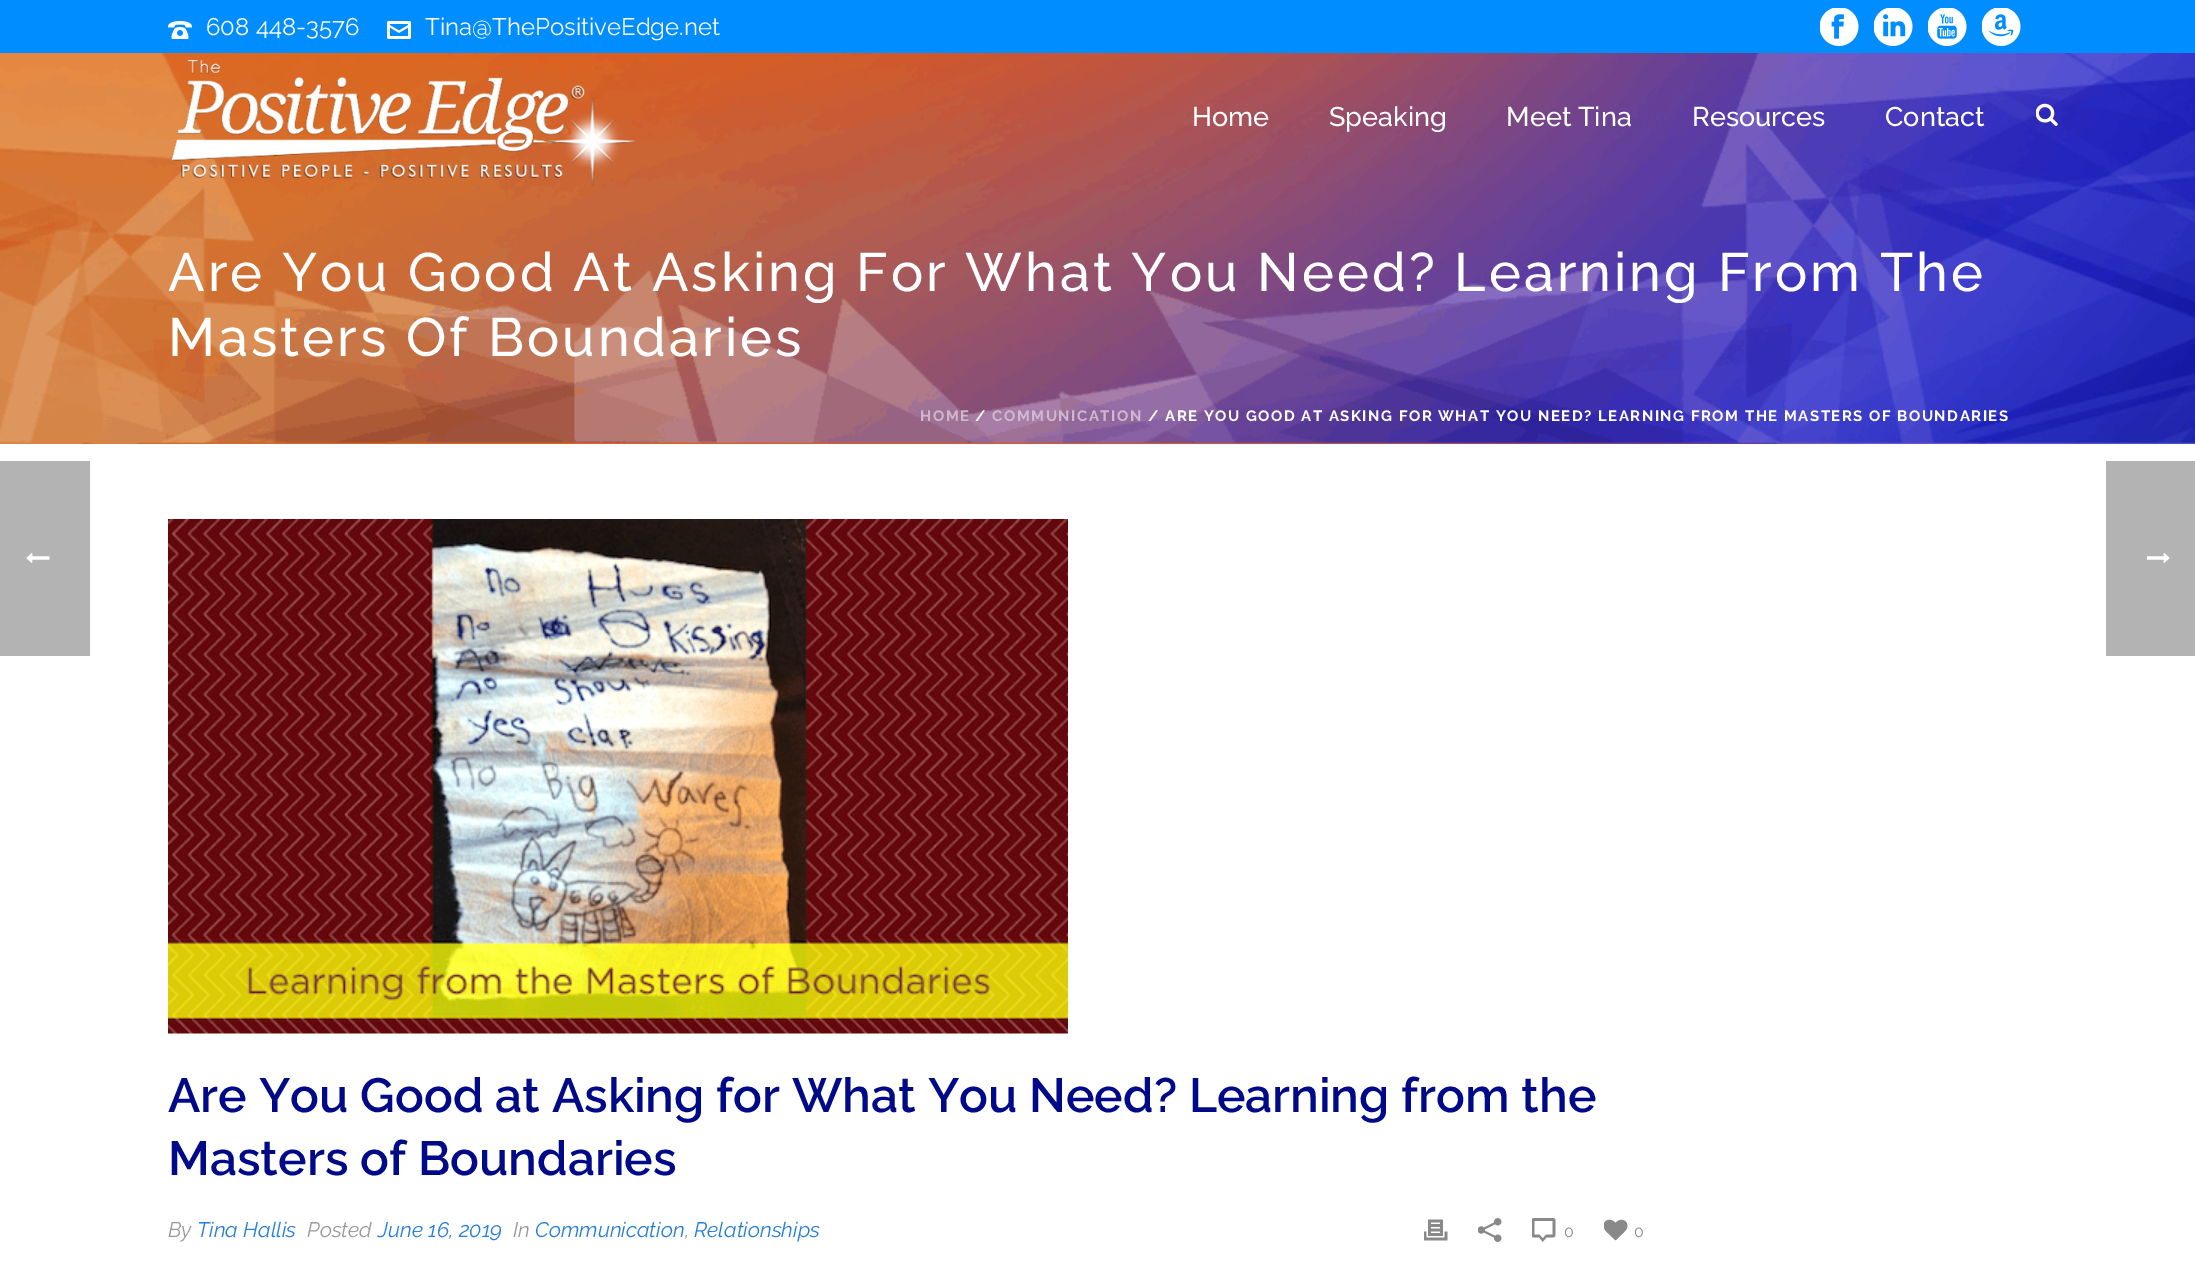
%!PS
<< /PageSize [2195 1266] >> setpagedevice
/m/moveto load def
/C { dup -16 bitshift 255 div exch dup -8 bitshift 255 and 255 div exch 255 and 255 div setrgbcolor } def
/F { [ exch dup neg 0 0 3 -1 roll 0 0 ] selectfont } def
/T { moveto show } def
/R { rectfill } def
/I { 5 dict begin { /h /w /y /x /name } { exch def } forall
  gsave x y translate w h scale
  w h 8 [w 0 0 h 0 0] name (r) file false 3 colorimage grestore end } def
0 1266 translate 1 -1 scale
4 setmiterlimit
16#FFFFFF C
0 0 2195 1266 R
16#B3B3B3 C
0 461 90 195 R
(1.rgb) 26 553 24 10 I
(2.rgb) 0 53 2195 391 I
16#008DFF C
0 0 2195 53 R
(3.rgb) 168 21 24 18 I
/Raleway-Regular 24 F
16#FFFFFF C
(608 448-3576) 206 35 T
(4.rgb) 387 21 24 18 I
(Tina@ThePositiveEdge.net) 425 35 T
(5.rgb) 1820 8 39 38 I
(6.rgb) 1874 8 39 38 I
(7.rgb) 1928 8 39 38 I
(8.rgb) 1982 8 39 38 I
(9.rgb) 171 60 464 126 I
/Raleway-Medium 27 F
(Home) 1192 126 T
(Speaking) 1329 126 T
(Meet Tina) 1506 126 T
(Resources) 1692 126 T
(Contact) 1885 126 T
(10.rgb) 2036 103 22 23 I
/Raleway-Medium 54 F
168 291 m 3 0 (Are You Good At Asking For What You Need? Learning From The) ashow
168 356 m 3 0 (Masters Of Boundaries) ashow
/Raleway-Bold 15 F
16#CFB7C9 C
920 421 m 1.5 0 (HOME) ashow
16#FFFFFF C
975 421 m 1.5 0 (/) ashow
16#CEB9D0 C
992 421 m 1.5 0 (COMMUNICATION) ashow
16#FFFFFF C
1148 421 m 1.5 0 (/ ARE YOU GOOD AT ASKING FOR WHAT YOU NEED? LEARNING FROM THE MASTERS OF BOUNDARIES) ashow
(11.rgb) 168 519 900 515 I
/Raleway-SemiBold 48 F
16#000987 C
(Are You Good at Asking for What You Need? Learning from the) 168 1112 T
(Masters of Boundaries) 168 1175 T
/Raleway-Italic 21 F
16#999999 C
(By) 168 1237 T
16#237FDB C
(Tina Hallis) 197 1237 T
16#999999 C
(Posted) 307 1237 T
16#237FDB C
(June 16, 2019) 378 1237 T
16#999999 C
(In) 513 1237 T
16#237FDB C
(Communication) 535 1237 T
16#999999 C
(,) 685 1237 T
16#237FDB C
(Relationships) 694 1237 T
(12.rgb) 1424 1219 24 22 I
(13.rgb) 1478 1218 24 24 I
(14.rgb) 1532 1218 24 24 I
/Raleway-Regular 16 F
16#898989 C
(0) 1564 1237 T
(15.rgb) 1604 1219 24 22 I
(0) 1634 1237 T
16#B3B3B3 C
2106 461 89 195 R
(16.rgb) 2147 553 23 10 I
showpage
